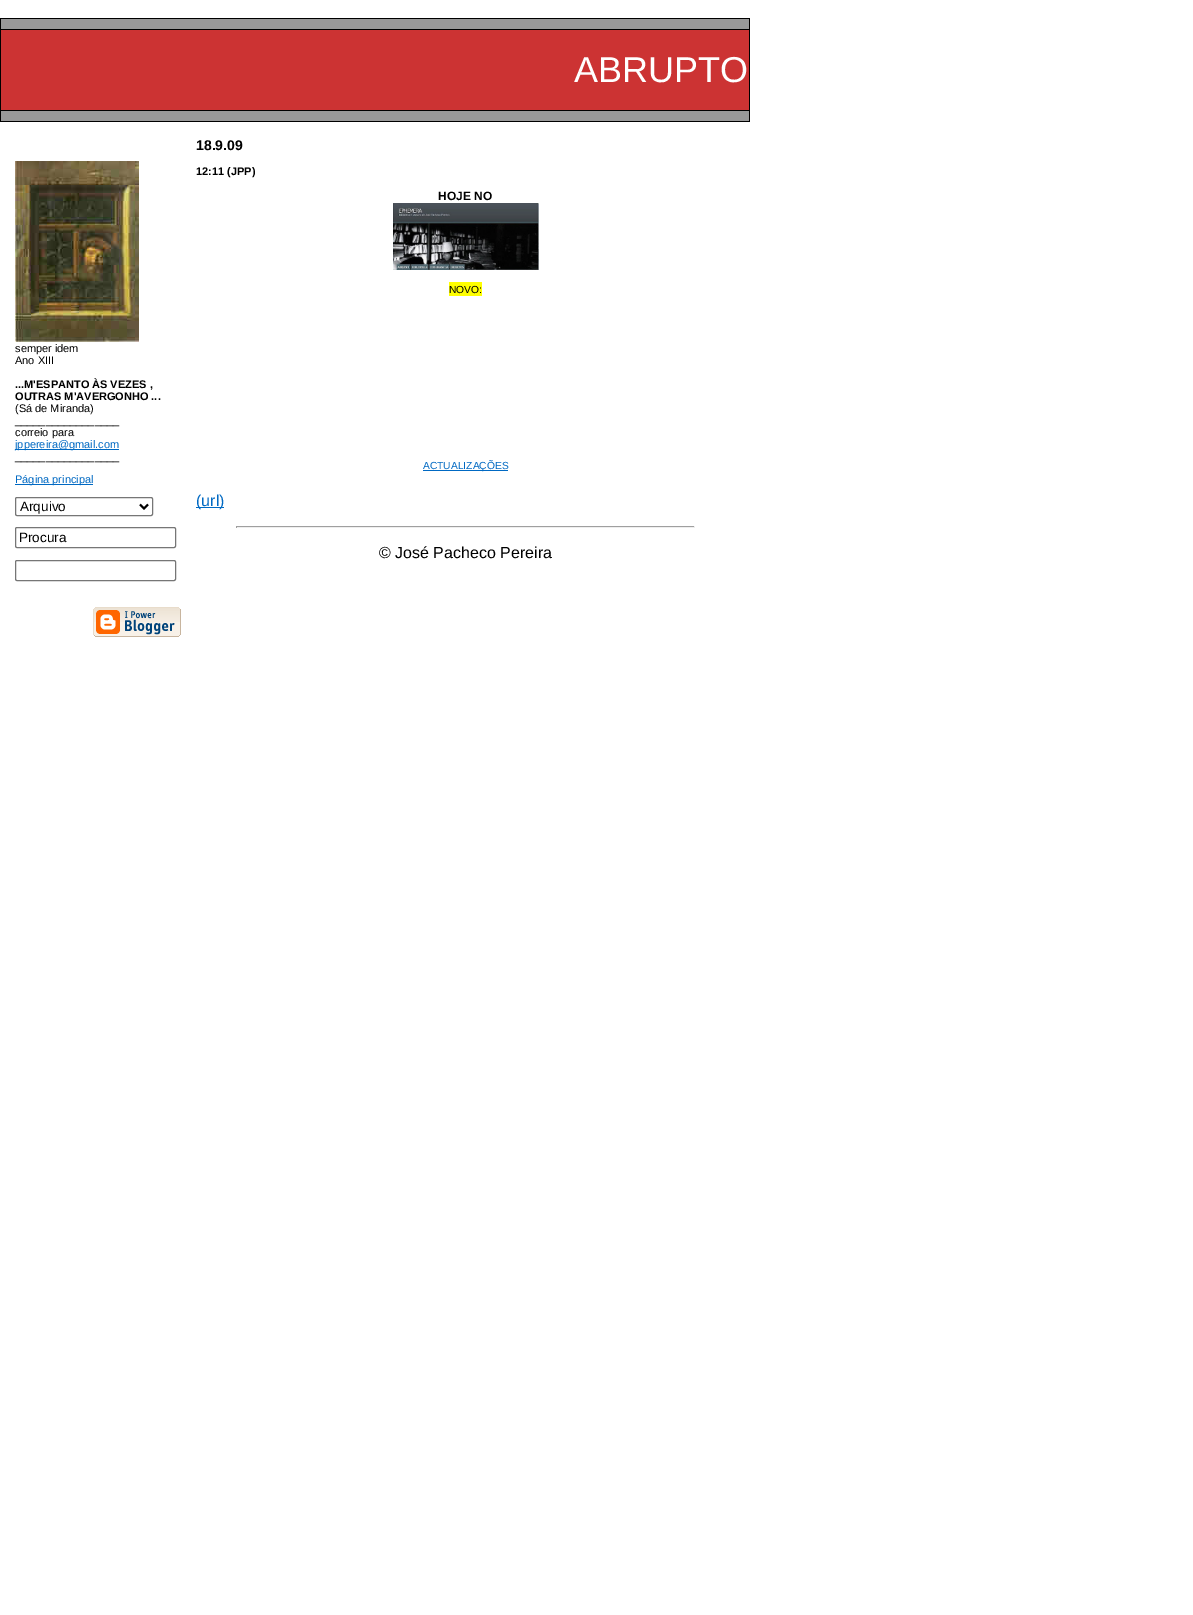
%!PS
<< /PageSize [1193 1615] >> setpagedevice
/m/moveto load def
/l/rlineto load def
/s/stroke load def
/w/setlinewidth load def
/C { dup -16 bitshift 255 div exch dup -8 bitshift 255 and 255 div exch 255 and 255 div setrgbcolor } def
/F { [ exch dup neg 0 0 3 -1 roll 0 0 ] selectfont } def
/T { moveto show } def
/R { rectfill } def
/Q { 5 dict begin { /r /h /w /y /x } { exch def } forall
  x r add y moveto x w add y 2 copy h add r arct x w add y h add x 1 index r arct
  x y h add x y r arct x y 2 copy exch w add exch r arct closepath end } def
/I { 5 dict begin { /h /w /y /x /name } { exch def } forall
  gsave x y translate w h scale
  w h 8 [w 0 0 h 0 0] name (r) file false 3 colorimage grestore end } def
0 1615 translate 1 -1 scale
4 setmiterlimit
16#FFFFFF C
0 0 1193 1615 R
16#000000 C
0 18 750 104 R
16#999999 C
1 19 748 10 R
16#CC3333 C
1 30 748 80 R
/LiberationSans-Regular 36 F
16#FFFFFF C
(ABRUPTO) 574 82 T
16#999999 C
1 111 748 10 R
(1.rgb) 15 161 124 181 I
/LiberationSans-Regular 11 F
16#000000 C
(semper idem) 15 352 T
(Ano XIII) 15 364 T
/LiberationSans-Bold 11 F
(...M'ESPANTO ÀS VEZES ,) 15 388 T
(OUTRAS M'AVERGONHO ...) 15 400 T
/LiberationSans-Regular 11 F
(\(Sá de Miranda\)) 15 412 T
(_________________) 15 424 T
(correio para) 15 436 T
16#0069C3 C
15 449 104 1 R
(jppereira@gmail.com) 15 448 T
16#000000 C
(_________________) 15 460 T
16#0069C3 C
15 484 78 1 R
(Página principal) 15 483 T
16#767676 C
15.5 497.5 137 18 1.5 Q s
16#000000 C
2 w
140 504.5 m 4 4 l 4 -4 l s
/LiberationSans-Regular 13.5 F
(Arquivo) 20 511 T
16#767676 C
1 w
15.5 527.5 160 20 1.5 Q s
16#000000 C
(Procura) 19 542 T
16#767676 C
15.5 560.5 160 20 1.5 Q s
/LiberationSans-Bold 14 F
16#000000 C
(18.9.09) 196 150 T
/LiberationSans-Bold 11 F
(12:11 \(JPP\)) 196 175 T
/LiberationSans-Bold 12 F
(HOJE NO) 438 200 T
(2.rgb) 393 203 146 67 I
16#FFFF00 C
449 282 33 14 R
/LiberationSans-Regular 10.25 F
16#000000 C
(NOVO:) 449 293 T
16#0069C3 C
423 470 85 1 R
(ACTUALIZAÇÕES) 423 469 T
196 507 28 1 R
/LiberationSans-Regular 16 F
(\(url\)) 196 506 T
16#9F9F9F C
236 526 459 1 R
16#EEEEEE C
694 526 1 2 R
236 527 459 1 R
16#9F9F9F C
236 526 1 2 R
16#000000 C
(© José Pacheco Pereira) 379 558 T
(3.rgb) 93 607 88 30 I
showpage
